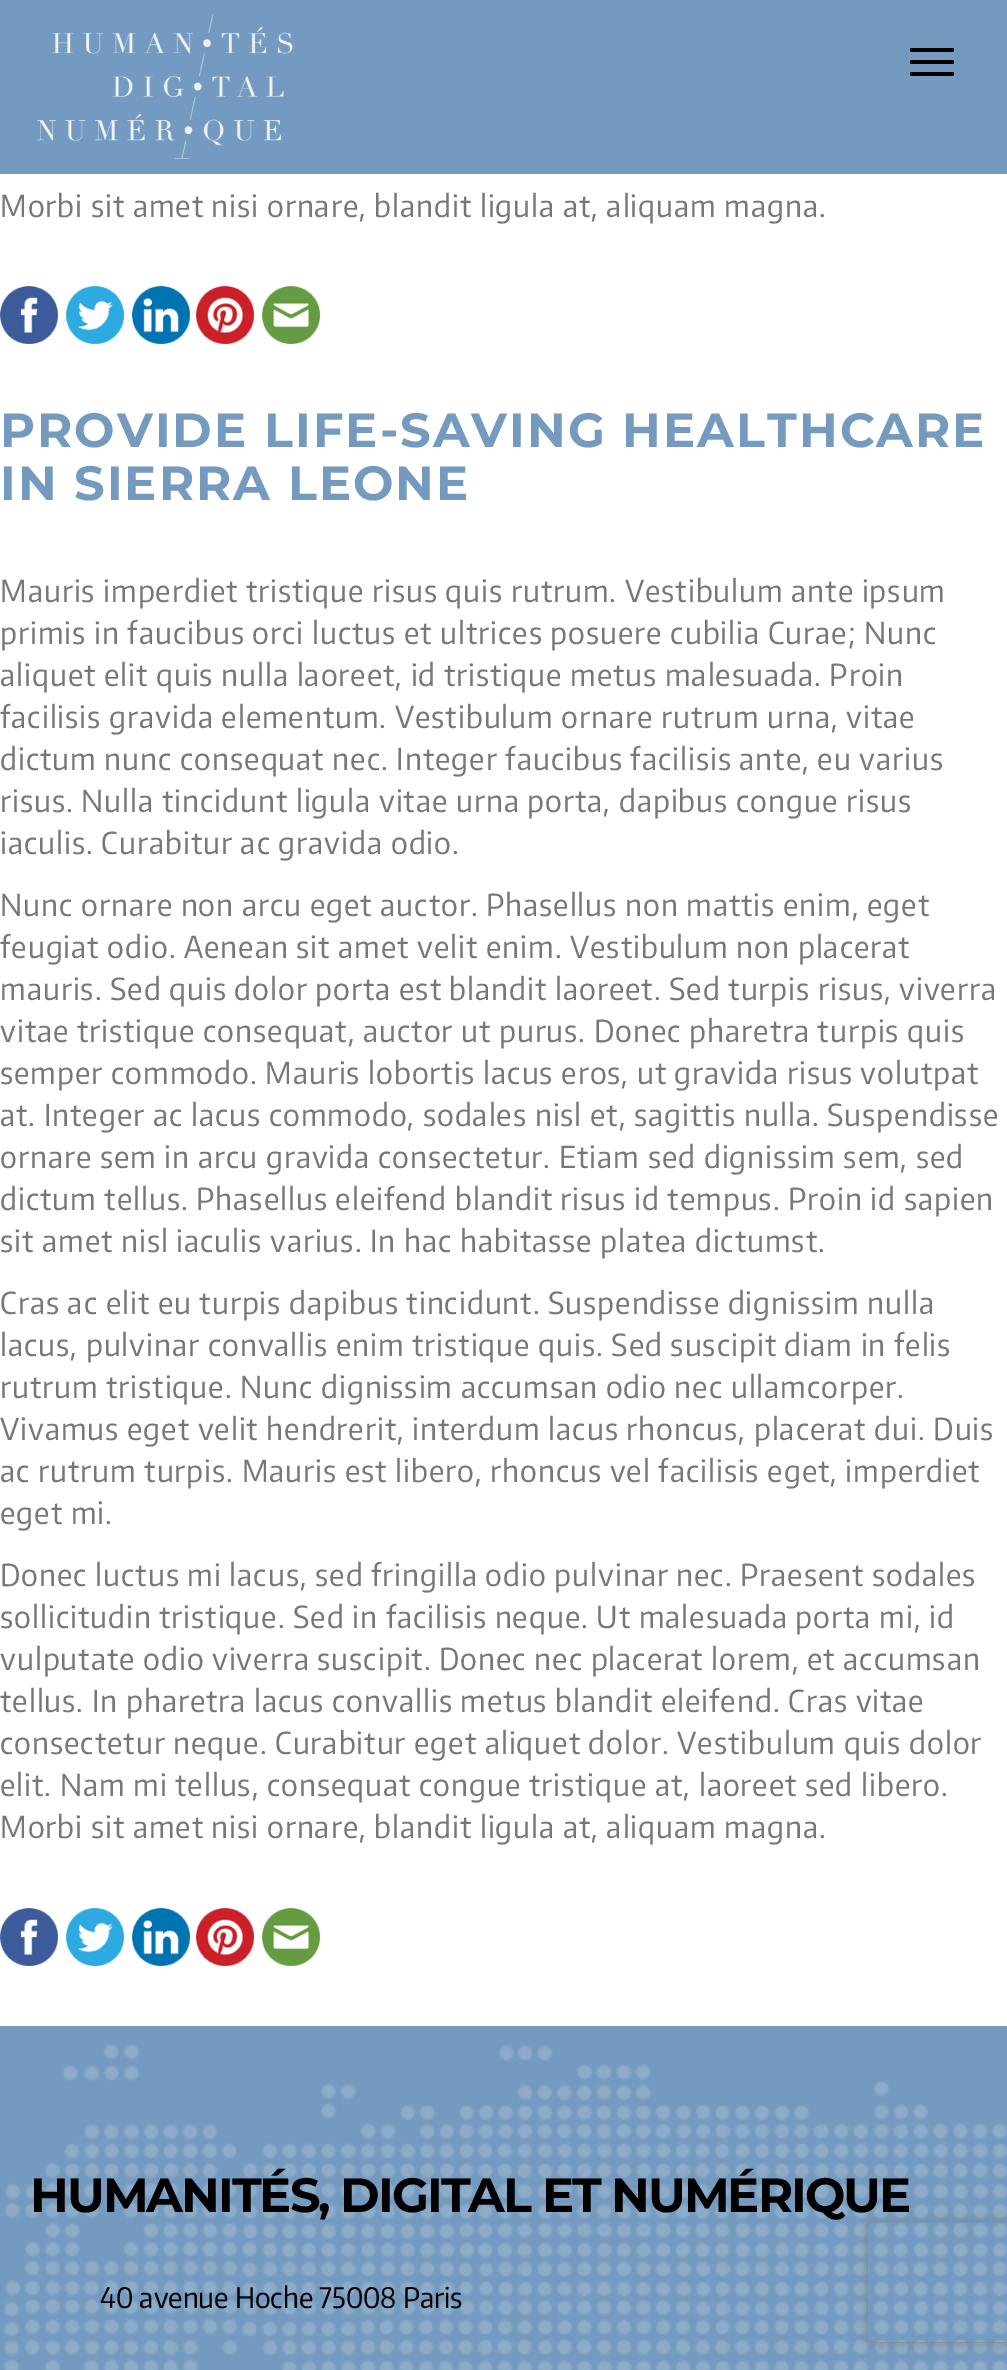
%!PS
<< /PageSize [1007 2370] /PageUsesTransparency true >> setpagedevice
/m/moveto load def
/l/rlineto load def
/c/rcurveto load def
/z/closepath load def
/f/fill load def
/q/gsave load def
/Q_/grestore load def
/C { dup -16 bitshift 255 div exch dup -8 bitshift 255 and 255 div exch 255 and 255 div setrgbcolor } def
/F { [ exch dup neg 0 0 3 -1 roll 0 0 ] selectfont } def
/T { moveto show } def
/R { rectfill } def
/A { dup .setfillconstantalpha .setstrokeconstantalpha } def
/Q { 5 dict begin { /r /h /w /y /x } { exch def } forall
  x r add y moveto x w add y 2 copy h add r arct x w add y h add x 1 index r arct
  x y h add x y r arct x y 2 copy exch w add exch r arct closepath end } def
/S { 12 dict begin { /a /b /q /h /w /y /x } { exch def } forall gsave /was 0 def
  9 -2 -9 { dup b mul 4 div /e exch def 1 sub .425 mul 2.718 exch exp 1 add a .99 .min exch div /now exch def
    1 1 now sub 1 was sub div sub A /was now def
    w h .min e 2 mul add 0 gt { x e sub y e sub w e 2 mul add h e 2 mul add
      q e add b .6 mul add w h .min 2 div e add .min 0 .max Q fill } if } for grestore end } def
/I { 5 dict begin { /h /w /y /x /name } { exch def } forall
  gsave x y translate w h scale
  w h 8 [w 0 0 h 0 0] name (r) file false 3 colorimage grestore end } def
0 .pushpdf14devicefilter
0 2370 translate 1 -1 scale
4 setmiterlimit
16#FFFFFF C
0 0 1007 2370 R
16#749BBF C
0 0 1007 174 R
(1.rgb) 37 14 256 145 I
16#000000 C
910 48 44 4 2 Q f
910 60 44 4 2 Q f
910 72 44 4 2 Q f
/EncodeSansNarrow-Regular 30 F
16#777777 C
0 217 m 1 0 (Morbi sit amet nisi ornare, blandit ligula at, aliquam magna.) ashow
(2.rgb) 0 286 58 58 I
(3.rgb) 66 286 58 58 I
(4.rgb) 132 286 58 58 I
(5.rgb) 196 286 58 58 I
(6.rgb) 262 286 58 58 I
/Montserrat-Bold 48 F
16#749BBF C
0 447 m 2 0 (PROVIDE LIFE-SAVING HEALTHCARE) ashow
0 500 m 2 0 (IN SIERRA LEONE) ashow
/EncodeSansNarrow-Regular 30 F
16#777777 C
0 602 m 1 0 (Mauris imperdiet tristique risus quis rutrum. Vestibulum ante ipsum) ashow
0 644 m 1 0 (primis in faucibus orci luctus et ultrices posuere cubilia Curae; Nunc) ashow
0 686 m 1 0 (aliquet elit quis nulla laoreet, id tristique metus malesuada. Proin) ashow
0 728 m 1 0 (facilisis gravida elementum. Vestibulum ornare rutrum urna, vitae) ashow
0 770 m 1 0 (dictum nunc consequat nec. Integer faucibus facilisis ante, eu varius) ashow
0 812 m 1 0 (risus. Nulla tincidunt ligula vitae urna porta, dapibus congue risus) ashow
0 854 m 1 0 (iaculis. Curabitur ac gravida odio.) ashow
0 916 m 1 0 (Nunc ornare non arcu eget auctor. Phasellus non mattis enim, eget) ashow
0 958 m 1 0 (feugiat odio. Aenean sit amet velit enim. Vestibulum non placerat) ashow
0 1000 m 1 0 (mauris. Sed quis dolor porta est blandit laoreet. Sed turpis risus, viverra) ashow
0 1042 m 1 0 (vitae tristique consequat, auctor ut purus. Donec pharetra turpis quis) ashow
0 1084 m 1 0 (semper commodo. Mauris lobortis lacus eros, ut gravida risus volutpat) ashow
0 1126 m 1 0 (at. Integer ac lacus commodo, sodales nisl et, sagittis nulla. Suspendisse) ashow
0 1168 m 1 0 (ornare sem in arcu gravida consectetur. Etiam sed dignissim sem, sed) ashow
0 1210 m 1 0 (dictum tellus. Phasellus eleifend blandit risus id tempus. Proin id sapien) ashow
0 1252 m 1 0 (sit amet nisl iaculis varius. In hac habitasse platea dictumst.) ashow
0 1314 m 1 0 (Cras ac elit eu turpis dapibus tincidunt. Suspendisse dignissim nulla) ashow
0 1356 m 1 0 (lacus, pulvinar convallis enim tristique quis. Sed suscipit diam in felis) ashow
0 1398 m 1 0 (rutrum tristique. Nunc dignissim accumsan odio nec ullamcorper.) ashow
0 1440 m 1 0 (Vivamus eget velit hendrerit, interdum lacus rhoncus, placerat dui. Duis) ashow
0 1482 m 1 0 (ac rutrum turpis. Mauris est libero, rhoncus vel facilisis eget, imperdiet) ashow
0 1524 m 1 0 (eget mi.) ashow
0 1586 m 1 0 (Donec luctus mi lacus, sed fringilla odio pulvinar nec. Praesent sodales) ashow
0 1628 m 1 0 (sollicitudin tristique. Sed in facilisis neque. Ut malesuada porta mi, id) ashow
0 1670 m 1 0 (vulputate odio viverra suscipit. Donec nec placerat lorem, et accumsan) ashow
0 1712 m 1 0 (tellus. In pharetra lacus convallis metus blandit eleifend. Cras vitae) ashow
0 1754 m 1 0 (consectetur neque. Curabitur eget aliquet dolor. Vestibulum quis dolor) ashow
0 1796 m 1 0 (elit. Nam mi tellus, consequat congue tristique at, laoreet sed libero.) ashow
0 1838 m 1 0 (Morbi sit amet nisi ornare, blandit ligula at, aliquam magna.) ashow
(2.rgb) 0 1908 58 58 I
(3.rgb) 66 1908 58 58 I
(4.rgb) 132 1908 58 58 I
(5.rgb) 196 1908 58 58 I
(6.rgb) 262 1908 58 58 I
16#749BBF C
0 2026 1007 344 R
(7.rgb) 4 2044 1003 326 I
/Montserrat-Bold 48 F
16#000000 C
30 2212 m -2 0 (HUMANITÉS, DIGITAL ET NUMÉRIQUE) ashow
/EncodeSansNarrow-Regular 28 F
(40 avenue Hoche 75008 Paris) 100 2308 T
q
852 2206 m 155 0 l 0 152 l -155 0 l z 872 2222 m 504 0 l 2 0 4 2 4 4 c 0 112 l 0 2 -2 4 -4 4 c -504 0 l -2 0 -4 -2 -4 -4 c 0 -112 l 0 -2 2 -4 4 -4 c z eoclip newpath
16#808080 C
868 2222 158 120 4 5 1 S
Q_
.poppdf14devicefilter showpage
